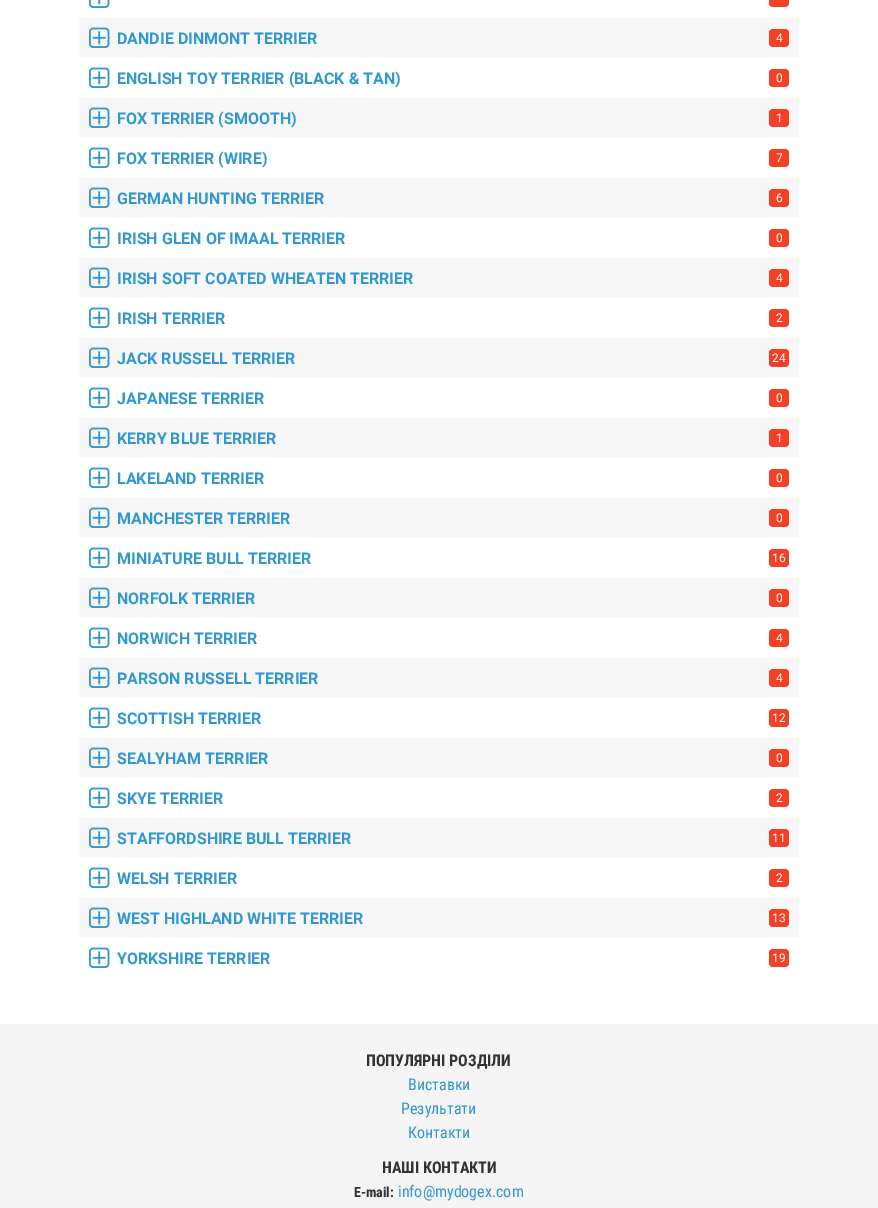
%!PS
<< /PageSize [878 1208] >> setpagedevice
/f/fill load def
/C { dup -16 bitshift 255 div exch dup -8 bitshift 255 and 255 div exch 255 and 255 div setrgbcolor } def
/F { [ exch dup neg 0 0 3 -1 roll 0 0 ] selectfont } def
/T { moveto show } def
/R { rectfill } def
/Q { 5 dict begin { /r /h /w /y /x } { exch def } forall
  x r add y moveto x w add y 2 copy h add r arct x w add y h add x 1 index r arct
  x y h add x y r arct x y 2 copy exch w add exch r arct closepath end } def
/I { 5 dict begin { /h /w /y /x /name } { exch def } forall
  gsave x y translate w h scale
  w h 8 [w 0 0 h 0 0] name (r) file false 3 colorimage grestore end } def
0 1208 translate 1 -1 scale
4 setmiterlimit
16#FFFFFF C
0 0 878 1208 R
(1.rgb) 89 0 21 8 I
16#F44027 C
769 -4 20 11 4 Q f
16#F7F7F7 C
79 18 720 40 R
(2.rgb) 89 27 21 21 I
/Roboto-Bold 16 F
16#3097D1 C
(DANDIE DINMONT TERRIER) 117 44 T
16#F44027 C
769 29 20 18 4 Q f
/Roboto-Regular 12 F
16#FFFFFF C
(4) 776 42 T
(3.rgb) 89 67 21 21 I
/Roboto-Bold 16 F
16#3097D1 C
(ENGLISH TOY TERRIER \(BLACK & TAN\)) 117 84 T
16#F44027 C
769 69 20 18 4 Q f
/Roboto-Regular 12 F
16#FFFFFF C
(0) 776 82 T
16#F7F7F7 C
79 98 720 40 R
(2.rgb) 89 107 21 21 I
/Roboto-Bold 16 F
16#3097D1 C
(FOX TERRIER \(SMOOTH\)) 117 124 T
16#F44027 C
769 109 20 18 4 Q f
/Roboto-Regular 12 F
16#FFFFFF C
(1) 776 122 T
(3.rgb) 89 147 21 21 I
/Roboto-Bold 16 F
16#3097D1 C
(FOX TERRIER \(WIRE\)) 117 164 T
16#F44027 C
769 149 20 18 4 Q f
/Roboto-Regular 12 F
16#FFFFFF C
(7) 776 162 T
16#F7F7F7 C
79 178 720 40 R
(2.rgb) 89 187 21 21 I
/Roboto-Bold 16 F
16#3097D1 C
(GERMAN HUNTING TERRIER) 117 204 T
16#F44027 C
769 189 20 18 4 Q f
/Roboto-Regular 12 F
16#FFFFFF C
(6) 776 202 T
(3.rgb) 89 227 21 21 I
/Roboto-Bold 16 F
16#3097D1 C
(IRISH GLEN OF IMAAL TERRIER) 117 244 T
16#F44027 C
769 229 20 18 4 Q f
/Roboto-Regular 12 F
16#FFFFFF C
(0) 776 242 T
16#F7F7F7 C
79 258 720 40 R
(2.rgb) 89 267 21 21 I
/Roboto-Bold 16 F
16#3097D1 C
(IRISH SOFT COATED WHEATEN TERRIER) 117 284 T
16#F44027 C
769 269 20 18 4 Q f
/Roboto-Regular 12 F
16#FFFFFF C
(4) 776 282 T
(3.rgb) 89 307 21 21 I
/Roboto-Bold 16 F
16#3097D1 C
(IRISH TERRIER) 117 324 T
16#F44027 C
769 309 20 18 4 Q f
/Roboto-Regular 12 F
16#FFFFFF C
(2) 776 322 T
16#F7F7F7 C
79 338 720 40 R
(2.rgb) 89 347 21 21 I
/Roboto-Bold 16 F
16#3097D1 C
(JACK RUSSELL TERRIER) 117 364 T
16#F44027 C
769 349 20 18 4 Q f
/Roboto-Regular 12 F
16#FFFFFF C
(24) 772 362 T
(3.rgb) 89 387 21 21 I
/Roboto-Bold 16 F
16#3097D1 C
(JAPANESE TERRIER) 117 404 T
16#F44027 C
769 389 20 18 4 Q f
/Roboto-Regular 12 F
16#FFFFFF C
(0) 776 402 T
16#F7F7F7 C
79 418 720 40 R
(2.rgb) 89 427 21 21 I
/Roboto-Bold 16 F
16#3097D1 C
(KERRY BLUE TERRIER) 117 444 T
16#F44027 C
769 429 20 18 4 Q f
/Roboto-Regular 12 F
16#FFFFFF C
(1) 776 442 T
(3.rgb) 89 467 21 21 I
/Roboto-Bold 16 F
16#3097D1 C
(LAKELAND TERRIER) 117 484 T
16#F44027 C
769 469 20 18 4 Q f
/Roboto-Regular 12 F
16#FFFFFF C
(0) 776 482 T
16#F7F7F7 C
79 498 720 40 R
(2.rgb) 89 507 21 21 I
/Roboto-Bold 16 F
16#3097D1 C
(MANCHESTER TERRIER) 117 524 T
16#F44027 C
769 509 20 18 4 Q f
/Roboto-Regular 12 F
16#FFFFFF C
(0) 776 522 T
(3.rgb) 89 547 21 21 I
/Roboto-Bold 16 F
16#3097D1 C
(MINIATURE BULL TERRIER) 117 564 T
16#F44027 C
769 549 20 18 4 Q f
/Roboto-Regular 12 F
16#FFFFFF C
(16) 772 562 T
16#F7F7F7 C
79 578 720 40 R
(2.rgb) 89 587 21 21 I
/Roboto-Bold 16 F
16#3097D1 C
(NORFOLK TERRIER) 117 604 T
16#F44027 C
769 589 20 18 4 Q f
/Roboto-Regular 12 F
16#FFFFFF C
(0) 776 602 T
(3.rgb) 89 627 21 21 I
/Roboto-Bold 16 F
16#3097D1 C
(NORWICH TERRIER) 117 644 T
16#F44027 C
769 629 20 18 4 Q f
/Roboto-Regular 12 F
16#FFFFFF C
(4) 776 642 T
16#F7F7F7 C
79 658 720 40 R
(2.rgb) 89 667 21 21 I
/Roboto-Bold 16 F
16#3097D1 C
(PARSON RUSSELL TERRIER) 117 684 T
16#F44027 C
769 669 20 18 4 Q f
/Roboto-Regular 12 F
16#FFFFFF C
(4) 776 682 T
(3.rgb) 89 707 21 21 I
/Roboto-Bold 16 F
16#3097D1 C
(SCOTTISH TERRIER) 117 724 T
16#F44027 C
769 709 20 18 4 Q f
/Roboto-Regular 12 F
16#FFFFFF C
(12) 772 722 T
16#F7F7F7 C
79 738 720 40 R
(2.rgb) 89 747 21 21 I
/Roboto-Bold 16 F
16#3097D1 C
(SEALYHAM TERRIER) 117 764 T
16#F44027 C
769 749 20 18 4 Q f
/Roboto-Regular 12 F
16#FFFFFF C
(0) 776 762 T
(3.rgb) 89 787 21 21 I
/Roboto-Bold 16 F
16#3097D1 C
(SKYE TERRIER) 117 804 T
16#F44027 C
769 789 20 18 4 Q f
/Roboto-Regular 12 F
16#FFFFFF C
(2) 776 802 T
16#F7F7F7 C
79 818 720 40 R
(2.rgb) 89 827 21 21 I
/Roboto-Bold 16 F
16#3097D1 C
(STAFFORDSHIRE BULL TERRIER) 117 844 T
16#F44027 C
769 829 20 18 4 Q f
/Roboto-Regular 12 F
16#FFFFFF C
(11) 772 842 T
(3.rgb) 89 867 21 21 I
/Roboto-Bold 16 F
16#3097D1 C
(WELSH TERRIER) 117 884 T
16#F44027 C
769 869 20 18 4 Q f
/Roboto-Regular 12 F
16#FFFFFF C
(2) 776 882 T
16#F7F7F7 C
79 898 720 40 R
(2.rgb) 89 907 21 21 I
/Roboto-Bold 16 F
16#3097D1 C
(WEST HIGHLAND WHITE TERRIER) 117 924 T
16#F44027 C
769 909 20 18 4 Q f
/Roboto-Regular 12 F
16#FFFFFF C
(13) 772 922 T
(3.rgb) 89 947 21 21 I
/Roboto-Bold 16 F
16#3097D1 C
(YORKSHIRE TERRIER) 117 964 T
16#F44027 C
769 949 20 18 4 Q f
/Roboto-Regular 12 F
16#FFFFFF C
(19) 772 962 T
16#F5F5F5 C
0 1024 878 184 R
/RobotoCondensed-Bold 16 F
16#333333 C
(ПОПУЛЯРНІ РОЗДІЛИ) 366 1066 T
/RobotoCondensed-Regular 16 F
16#3097D1 C
(Виставки) 408 1090 T
(Результати) 401 1114 T
(Контакти) 408 1138 T
/RobotoCondensed-Bold 16 F
16#333333 C
(НАШІ КОНТАКТИ) 382 1173 T
/RobotoCondensed-Bold 14 F
(E-mail:) 354 1197 T
/RobotoCondensed-Regular 16 F
16#3097D1 C
(info@mydogex.com) 398 1197 T
showpage
